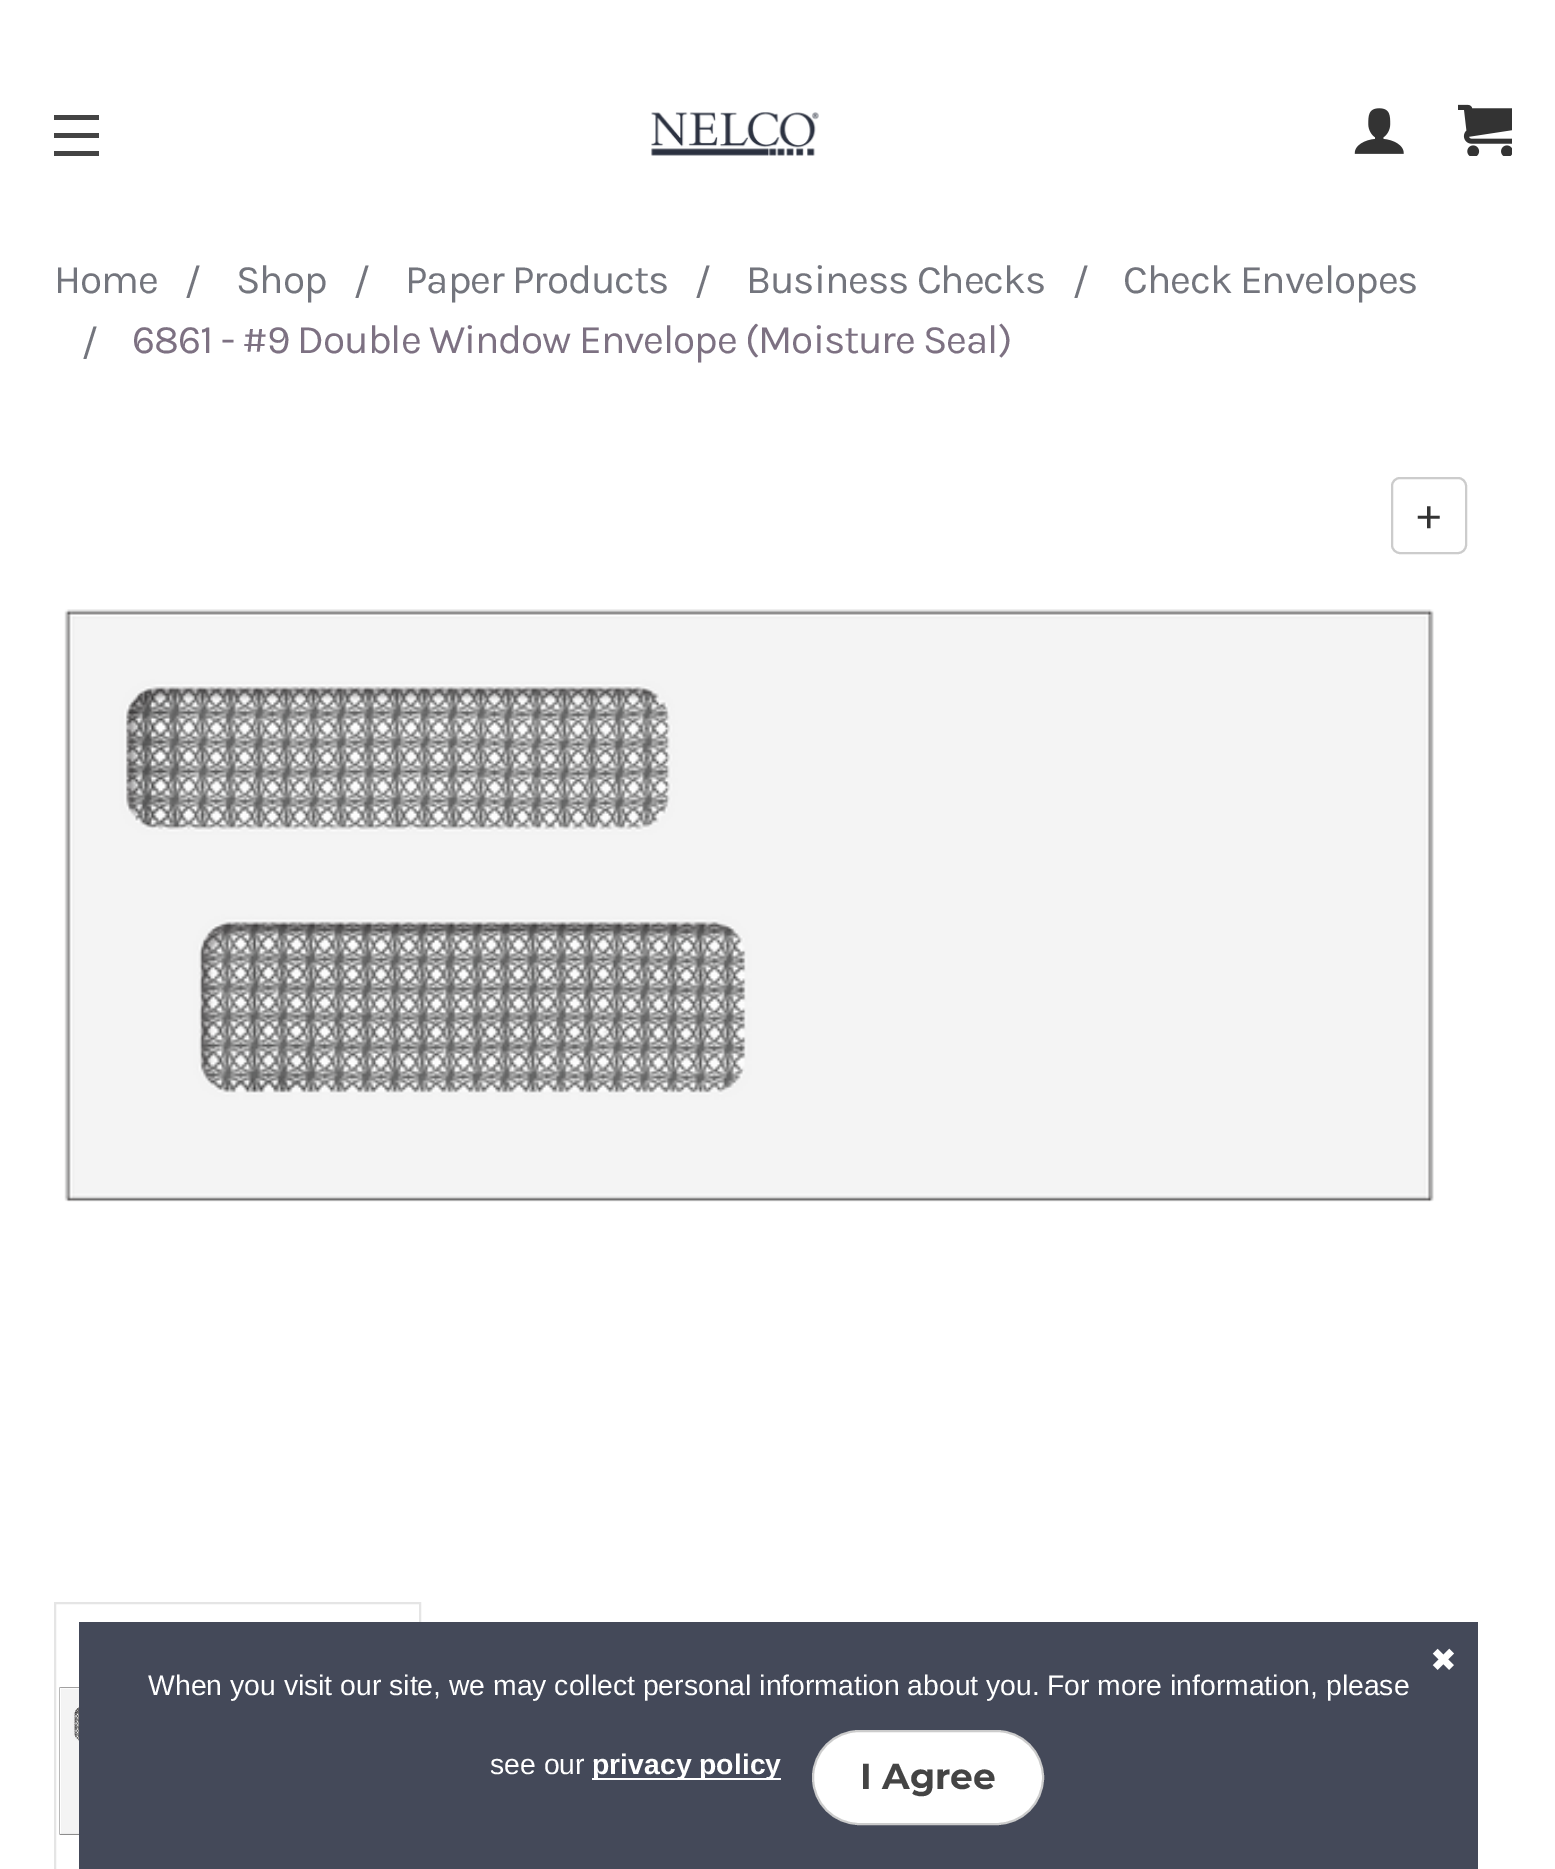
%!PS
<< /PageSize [1555 1869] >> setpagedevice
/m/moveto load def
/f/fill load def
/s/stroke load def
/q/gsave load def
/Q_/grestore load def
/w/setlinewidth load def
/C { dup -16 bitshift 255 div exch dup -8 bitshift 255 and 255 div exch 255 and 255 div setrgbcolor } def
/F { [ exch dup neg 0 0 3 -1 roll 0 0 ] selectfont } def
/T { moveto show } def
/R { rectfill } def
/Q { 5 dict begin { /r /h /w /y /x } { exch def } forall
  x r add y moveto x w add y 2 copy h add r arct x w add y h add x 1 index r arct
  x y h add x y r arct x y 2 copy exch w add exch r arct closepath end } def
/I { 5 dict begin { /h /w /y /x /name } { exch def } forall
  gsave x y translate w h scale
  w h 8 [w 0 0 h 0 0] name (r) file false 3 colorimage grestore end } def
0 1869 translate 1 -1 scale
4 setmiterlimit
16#FFFFFF C
0 0 1555 1869 R
16#444444 C
54 133 45 5 R
54 115 45 5 R
54 151 45 5 R
(1.rgb) 651 112 168 44 I
(2.rgb) 1354 108 50 46 I
(3.rgb) 1458 104 54 52 I
/Karla-Regular 40.5 F
16#73757D C
54 293 m -1.1 0 (Home) ashow
(/) 184 295 T
236 293 m -1.1 0 (Shop) ashow
(/) 353 295 T
405 293 m -1.1 0 (Paper Products) ashow
(/) 694 295 T
746 293 m -1.1 0 (Business Checks) ashow
(/) 1072 295 T
1123 293 m -1.1 0 (Check Envelopes) ashow
(/) 81 356 T
16#7D7182 C
132 353 m -1.1 0 (6861 - #9 Double Window Envelope \(Moisture Seal\)) ashow
16#CCCCCC C
2 w
1392 478 74 75 8 Q s
/Karla-Regular 45 F
16#333333 C
(+) 1417 529 T
(4.rgb) 64 609 1370 593 I
16#E5E5E5 C
55 1603 365 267 rectstroke
(5.rgb) 59 1687 20 148 I
16#444959 C
79 1622 1399 247 R
/DejaVuSans-Regular 32 F
16#FFFFFF C
(✖) 1430 1671 T
/LiberationSans-Regular 28.35 F
(When you visit our site, we may collect personal information about you.) 148 1695 T
(For more information, please) 1047 1695 T
(see our) 490 1774 T
592 1778 189 2 R
/LiberationSans-Bold 28.35 F
(privacy policy) 592 1774 T
813 1731 230 93 46.5 Q q f Q_
16#CCCCCC C
s
/Montserrat-Bold 36 F
16#444444 C
(I Agree) 860 1789 T
showpage
